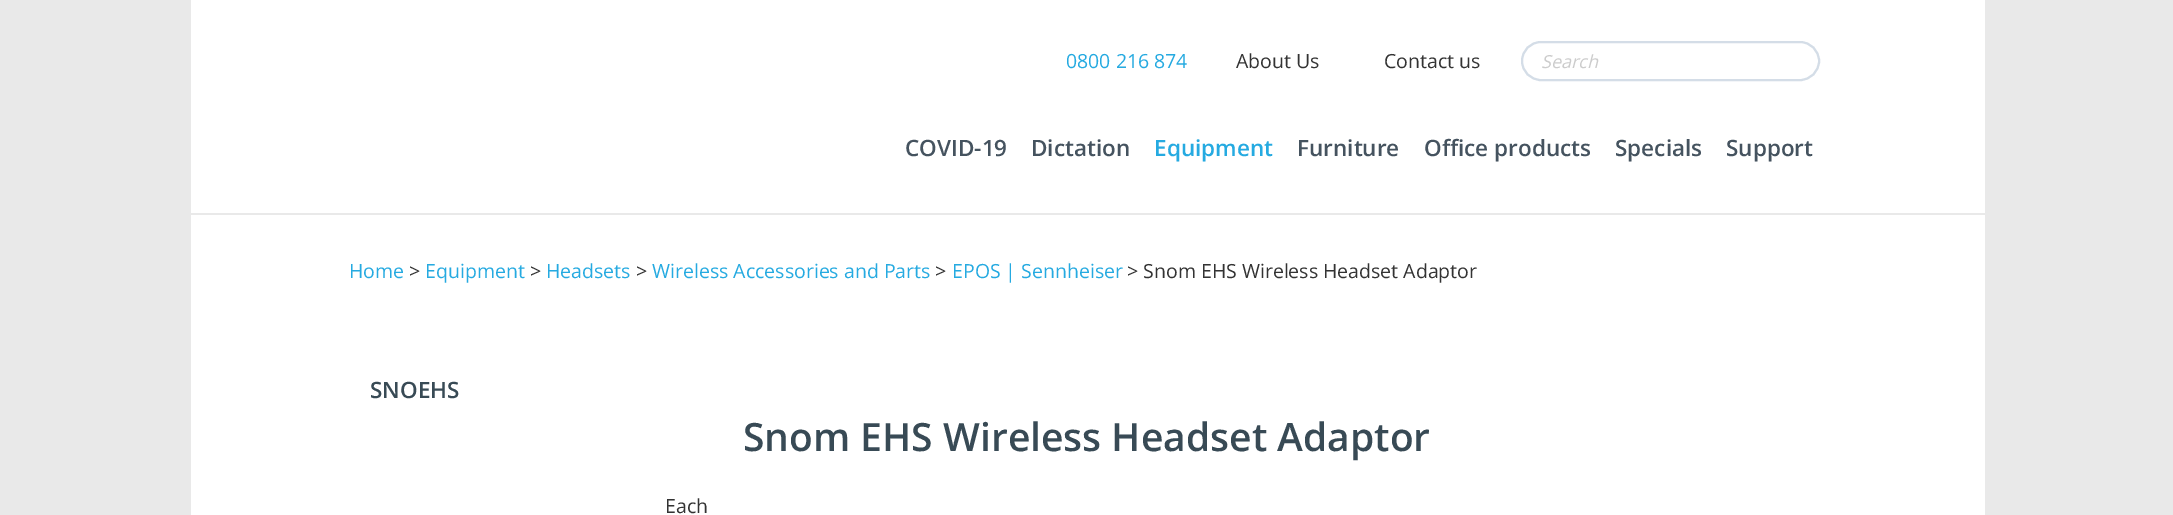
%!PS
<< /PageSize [2173 515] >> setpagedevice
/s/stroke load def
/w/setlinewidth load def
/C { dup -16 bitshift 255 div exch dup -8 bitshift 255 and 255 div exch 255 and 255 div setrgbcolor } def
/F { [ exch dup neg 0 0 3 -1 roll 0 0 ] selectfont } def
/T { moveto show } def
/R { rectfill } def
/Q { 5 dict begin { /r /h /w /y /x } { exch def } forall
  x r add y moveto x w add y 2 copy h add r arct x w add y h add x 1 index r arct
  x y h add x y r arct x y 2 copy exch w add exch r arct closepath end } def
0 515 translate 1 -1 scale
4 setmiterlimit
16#E9E9E9 C
0 0 2173 515 R
16#FFFFFF C
191 0 1794 515 R
16#E9E9E9 C
191 213 1794 2 R
/OpenSans-Regular 19.5 F
16#25AAE1 C
(0800 216 874) 1066 68 T
16#333333 C
(About Us) 1236 68 T
(Contact us) 1384 68 T
16#D4DDE7 C
2 w
1522 42 297 38 19 Q s
/OpenSans-Italic 18 F
16#CCCCCC C
(Search) 1541 68 T
/OpenSans-SemiBold 22.5 F
16#45535F C
(COVID-19) 905 156 T
(Dictation) 1031 156 T
16#25AAE1 C
(Equipment) 1154 156 T
16#45535F C
(Furniture) 1297 156 T
(Office products) 1424 156 T
(Specials) 1615 156 T
(Support) 1726 156 T
/OpenSans-Regular 19.5 F
16#25AAE1 C
(Home) 349 278 T
16#333333 C
(>) 409 278 T
16#25AAE1 C
(Equipment) 425 278 T
16#333333 C
(>) 530 278 T
16#25AAE1 C
(Headsets) 546 278 T
16#333333 C
(>) 636 278 T
16#25AAE1 C
(Wireless Accessories and Parts) 652 278 T
16#333333 C
(>) 935 278 T
16#25AAE1 C
(EPOS | Sennheiser) 952 278 T
16#333333 C
(> Snom EHS Wireless Headset Adaptor) 1127 278 T
/OpenSans-SemiBold 22.5 F
16#384A55 C
(SNOEHS) 370 398 T
/OpenSans-SemiBold 39 F
(Snom EHS Wireless Headset Adaptor) 743 451 T
/OpenSans-Regular 19.5 F
16#333333 C
(Each) 665 513 T
showpage
